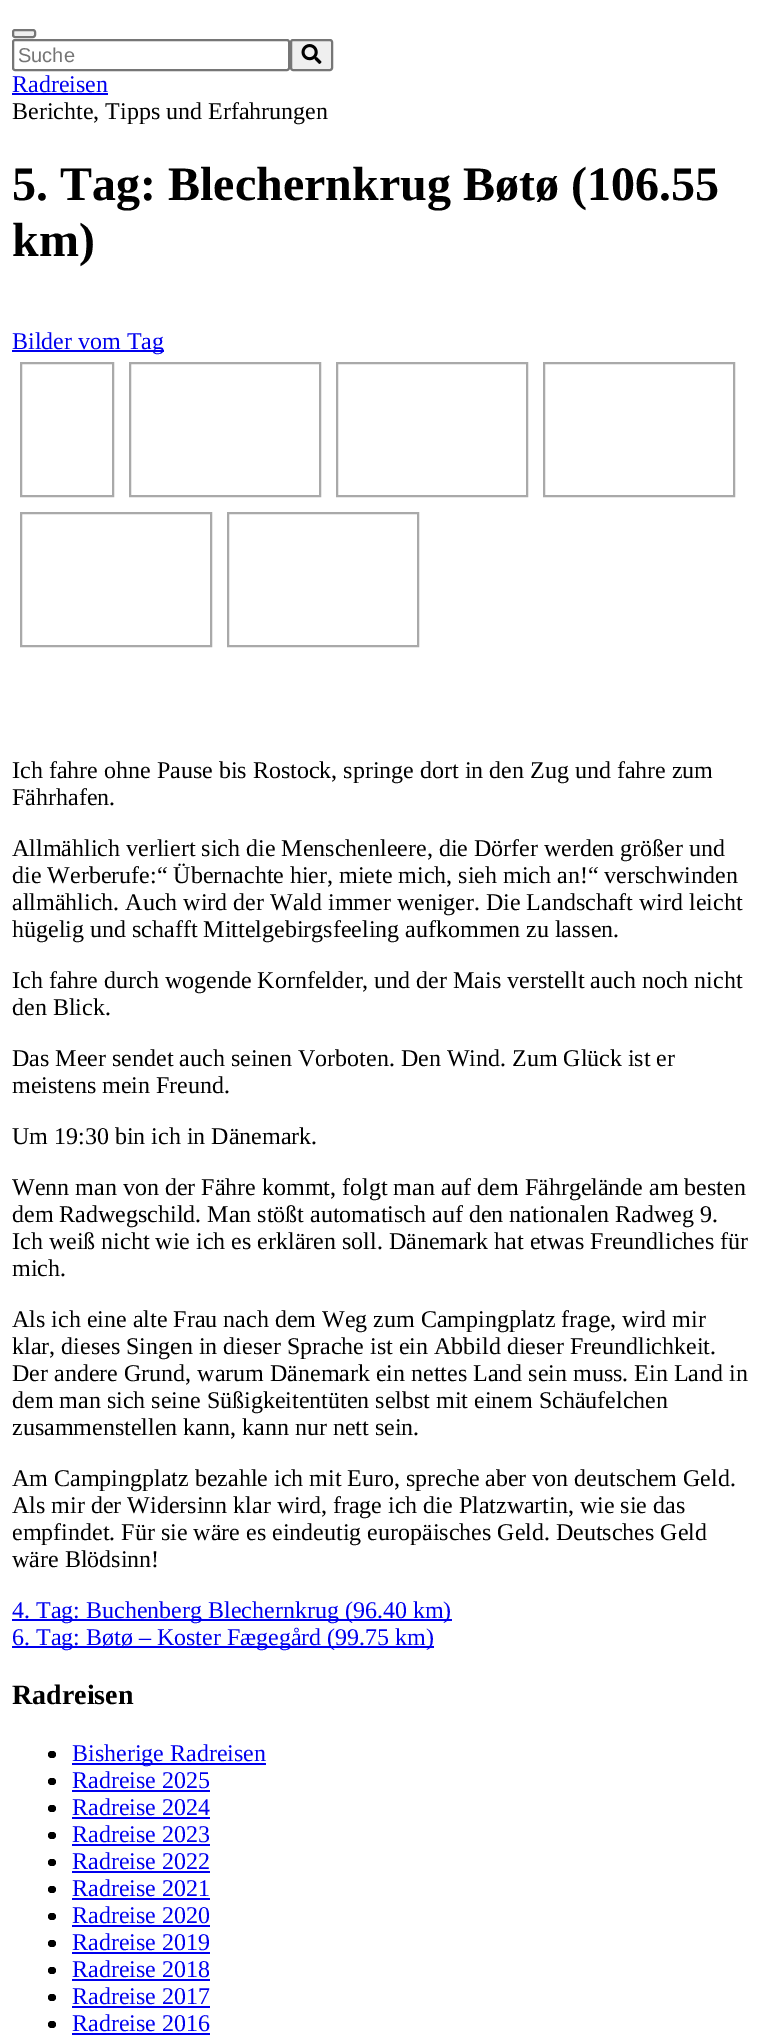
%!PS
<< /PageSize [761 2035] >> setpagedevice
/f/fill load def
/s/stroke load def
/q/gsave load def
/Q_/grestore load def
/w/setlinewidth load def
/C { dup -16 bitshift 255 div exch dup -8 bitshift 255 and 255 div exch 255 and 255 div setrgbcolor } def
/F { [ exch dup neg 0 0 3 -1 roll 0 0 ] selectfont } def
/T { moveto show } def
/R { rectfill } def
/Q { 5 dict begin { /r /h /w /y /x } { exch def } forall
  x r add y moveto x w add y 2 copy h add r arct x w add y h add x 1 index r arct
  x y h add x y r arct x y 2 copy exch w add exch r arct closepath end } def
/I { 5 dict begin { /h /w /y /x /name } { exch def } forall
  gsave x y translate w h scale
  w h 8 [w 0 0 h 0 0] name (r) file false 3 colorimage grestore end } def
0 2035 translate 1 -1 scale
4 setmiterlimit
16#FFFFFF C
0 0 761 2035 R
16#EFEFEF C
13 30 22 7 2 Q q f Q_
16#767676 C
2 w
s
13 40 276 30 2 Q s
/LiberationSans-Regular 20 F
16#757575 C
(Suche) 18 62 T
16#EFEFEF C
291 40 41 30 2 Q q f Q_
16#767676 C
s
(1.rgb) 301 44 21 20 I
/LiberationSerif-Regular 24 F
16#0000EE C
(Radreisen) 12 92 T
12 93 96 2 R
16#000000 C
(Berichte, Tipps und Erfahrungen) 12 119 T
/LiberationSerif-Bold 48 F
(5. Tag: Blechernkrug Bøtø \(106.55) 12 200 T
(km\)) 12 256 T
16#0000EE C
12 350 152 2 R
/LiberationSerif-Regular 24 F
(Bilder vom Tag) 12 349 T
16#A9A9A9 C
21 363 92 133 rectstroke
130 363 190 133 rectstroke
337 363 190 133 rectstroke
544 363 190 133 rectstroke
21 513 190 133 rectstroke
228 513 190 133 rectstroke
16#000000 C
(Ich fahre ohne Pause bis Rostock, springe dort in den Zug und fahre zum) 12 778 T
(Fährhafen.) 12 805 T
(Allmählich verliert sich die Menschenleere, die Dörfer werden größer und) 12 856 T
(die Werberufe:“ Übernachte hier, miete mich, sieh mich an!“ verschwinden) 12 883 T
(allmählich. Auch wird der Wald immer weniger. Die Landschaft wird leicht) 12 910 T
(hügelig und schafft Mittelgebirgsfeeling aufkommen zu lassen.) 12 937 T
(Ich fahre durch wogende Kornfelder, und der Mais verstellt auch noch nicht) 12 988 T
(den Blick.) 12 1015 T
(Das Meer sendet auch seinen Vorboten. Den Wind. Zum Glück ist er) 12 1066 T
(meistens mein Freund.) 12 1093 T
(Um 19:30 bin ich in Dänemark.) 12 1144 T
(Wenn man von der Fähre kommt, folgt man auf dem Fährgelände am besten) 12 1195 T
(dem Radwegschild. Man stößt automatisch auf den nationalen Radweg 9.) 12 1222 T
(Ich weiß nicht wie ich es erklären soll. Dänemark hat etwas Freundliches für) 12 1249 T
(mich.) 12 1276 T
(Als ich eine alte Frau nach dem Weg zum Campingplatz frage, wird mir) 12 1327 T
(klar, dieses Singen in dieser Sprache ist ein Abbild dieser Freundlichkeit.) 12 1354 T
(Der andere Grund, warum Dänemark ein nettes Land sein muss. Ein Land in) 12 1381 T
(dem man sich seine Süßigkeitentüten selbst mit einem Schäufelchen) 12 1408 T
(zusammenstellen kann, kann nur nett sein.) 12 1435 T
(Am Campingplatz bezahle ich mit Euro, spreche aber von deutschem Geld.) 12 1486 T
(Als mir der Widersinn klar wird, frage ich die Platzwartin, wie sie das) 12 1513 T
(empfindet. Für sie wäre es eindeutig europäisches Geld. Deutsches Geld) 12 1540 T
(wäre Blödsinn!) 12 1567 T
16#0000EE C
12 1619 440 2 R
(4. Tag: Buchenberg Blechernkrug \(96.40 km\)) 12 1618 T
12 1646 422 2 R
(6. Tag: Bøtø – Koster Fægegård \(99.75 km\)) 12 1645 T
/LiberationSerif-Bold 28 F
16#000000 C
(Radreisen) 12 1704 T
48 1751 8 7 3.5 Q f
16#0000EE C
72 1763 194 2 R
/LiberationSerif-Regular 24 F
(Bisherige Radreisen) 72 1761 T
16#000000 C
48 1778 8 7 3.5 Q f
16#0000EE C
(Radreise 2025) 72 1788 T
72 1790 138 2 R
16#000000 C
48 1805 8 7 3.5 Q f
16#0000EE C
(Radreise 2024) 72 1815 T
72 1817 138 2 R
16#000000 C
48 1832 8 7 3.5 Q f
16#0000EE C
(Radreise 2023) 72 1842 T
72 1844 138 2 R
16#000000 C
48 1859 8 7 3.5 Q f
16#0000EE C
(Radreise 2022) 72 1869 T
72 1871 138 2 R
16#000000 C
48 1886 8 7 3.5 Q f
16#0000EE C
(Radreise 2021) 72 1896 T
72 1898 138 2 R
16#000000 C
48 1913 8 7 3.5 Q f
16#0000EE C
(Radreise 2020) 72 1923 T
72 1925 138 2 R
16#000000 C
48 1940 8 7 3.5 Q f
16#0000EE C
(Radreise 2019) 72 1950 T
72 1952 138 2 R
16#000000 C
48 1967 8 7 3.5 Q f
16#0000EE C
(Radreise 2018) 72 1977 T
72 1979 138 2 R
16#000000 C
48 1994 8 7 3.5 Q f
16#0000EE C
(Radreise 2017) 72 2004 T
72 2006 138 2 R
16#000000 C
48 2021 8 7 3.5 Q f
16#0000EE C
(Radreise 2016) 72 2031 T
72 2033 138 2 R
showpage
